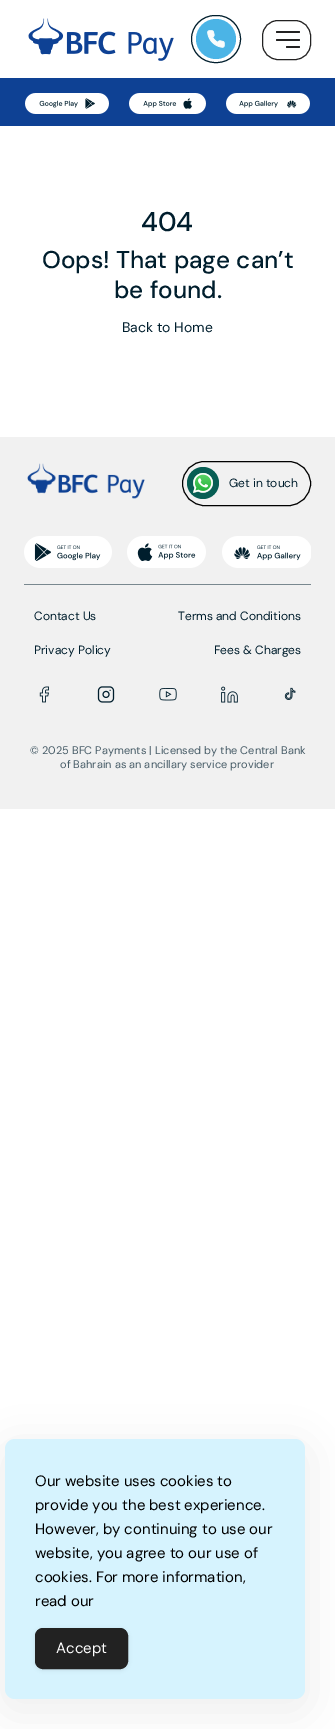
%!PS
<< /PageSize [335 1729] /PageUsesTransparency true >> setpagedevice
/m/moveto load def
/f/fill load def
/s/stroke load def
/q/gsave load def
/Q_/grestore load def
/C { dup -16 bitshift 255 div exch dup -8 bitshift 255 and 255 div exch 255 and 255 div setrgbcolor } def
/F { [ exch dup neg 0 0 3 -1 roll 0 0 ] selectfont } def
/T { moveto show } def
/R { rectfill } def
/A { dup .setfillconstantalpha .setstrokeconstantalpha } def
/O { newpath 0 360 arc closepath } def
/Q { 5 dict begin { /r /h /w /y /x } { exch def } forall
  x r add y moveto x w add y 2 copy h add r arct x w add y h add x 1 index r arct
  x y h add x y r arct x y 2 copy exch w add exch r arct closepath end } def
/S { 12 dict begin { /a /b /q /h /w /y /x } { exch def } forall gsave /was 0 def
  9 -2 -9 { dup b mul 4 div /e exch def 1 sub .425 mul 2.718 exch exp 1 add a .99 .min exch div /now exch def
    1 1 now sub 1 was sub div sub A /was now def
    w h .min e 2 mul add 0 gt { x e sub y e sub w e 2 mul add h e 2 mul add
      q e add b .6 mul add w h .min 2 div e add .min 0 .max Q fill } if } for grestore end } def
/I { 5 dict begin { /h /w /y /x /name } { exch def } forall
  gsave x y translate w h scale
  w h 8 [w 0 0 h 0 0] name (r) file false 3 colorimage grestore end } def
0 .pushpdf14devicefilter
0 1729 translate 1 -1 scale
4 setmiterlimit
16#FFFFFF C
0 0 335 1729 R
(1.rgb) 28 18 146 43 I
16#001E2D C
191.5 15.5 49 47 23.5 Q s
16#4BB4E6 C
216 39 20 O f
(2.rgb) 207 30 18 18 I
16#232222 C
262.5 20.5 48 39 15.5 Q s
276 31 24 2 1 Q f
276 39 24 2 1 Q f
286 46 14 2 1 Q f
16#0E4194 C
0 78 335 48 R
(3.rgb) 25 93 84 21 I
(4.rgb) 129 93 77 21 I
(5.rgb) 226 93 84 21 I
/DMSans-Medium 27 F
16#001E2D C
(404) 141 231 T
/DMSans-Medium 24.25 F
(Oops! That page can’t) 42 268 T
(be found.) 114 298 T
/DMSans-Regular 14 F
(Back to Home) 122 332 T
16#F1F1F1 C
0 437 335 372 R
16#79888F C
24 584 287 1 R
(6.rgb) 27 463 118 36 I
16#000000 C
182.5 461.5 128 44 22 Q s
16#075E54 C
203 483 16 O f
(7.rgb) 193 473 20 20 I
/DMSans-Regular 12 F
16#001E2D C
(Get in touch) 229 487 T
(8.rgb) 24 536 88 32 I
(9.rgb) 127 536 79 32 I
(10.rgb) 222 536 89 32 I
(Contact Us) 34 620 T
(Terms and Conditions) 178 620 T
(Privacy Policy) 34 654 T
(Fees & Charges) 214 654 T
(11.rgb) 39 686 10 17 I
(12.rgb) 97 686 18 17 I
(13.rgb) 159 688 18 13 I
(14.rgb) 221 686 17 17 I
(15.rgb) 284 687 12 13 I
/DMSans-Regular 11 F
16#485D68 C
30 754 m .05 0 (© 2025 BFC Payments | Licensed by the Central Bank) ashow
60 768 m .05 0 (of Bahrain as an ancillary service provider) ashow
16#000000 C
-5 1439 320 280 20 20 .05 S
16#D6F3FE C
5 1439 300 260 10 Q f
/DMSans-Regular 15 F
16#000000 C
(Our website uses cookies to) 35 1486 T
(provide you the best experience.) 35 1510 T
(However, by continuing to use our) 35 1534 T
(website, you agree to our use of) 35 1558 T
(cookies. For more information,) 35 1582 T
(read our) 35 1606 T
35 1629 93 41 8 2 .1 S
16#222222 C
35.5 1628.5 92 40 7.5 Q q f Q_
s
16#FFFFFF C
(Accept) 56 1653 T
.poppdf14devicefilter showpage
